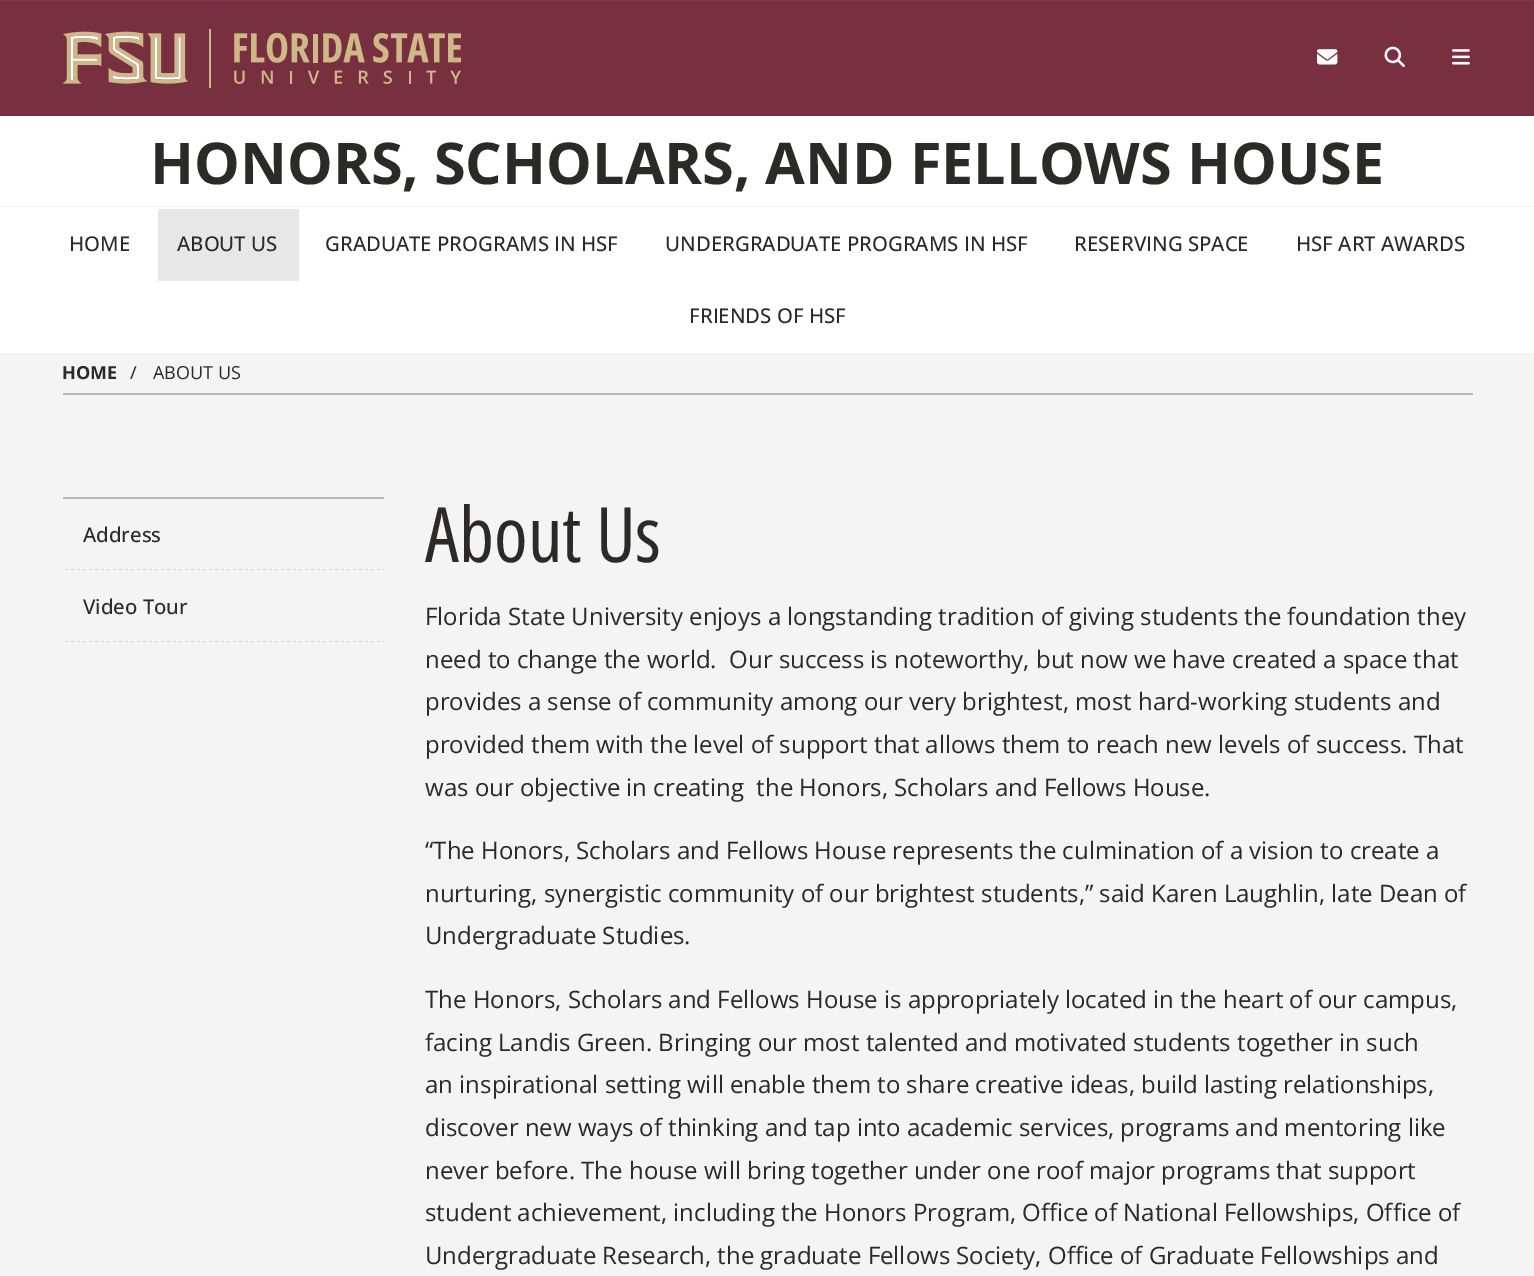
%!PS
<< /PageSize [1534 1276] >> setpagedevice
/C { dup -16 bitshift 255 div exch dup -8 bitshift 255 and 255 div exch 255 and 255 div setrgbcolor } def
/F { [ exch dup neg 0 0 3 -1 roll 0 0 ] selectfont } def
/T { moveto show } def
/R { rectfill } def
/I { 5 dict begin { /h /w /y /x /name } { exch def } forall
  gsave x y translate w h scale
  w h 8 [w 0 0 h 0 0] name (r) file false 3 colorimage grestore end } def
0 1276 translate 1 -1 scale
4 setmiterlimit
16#782F40 C
0 0 1534 1276 R
16#7C3546 C
0 0 1534 2 R
16#722D3D C
0 114 1534 2 R
(1.rgb) 62 29 400 59 I
(2.rgb) 1317 49 21 16 I
(3.rgb) 1384 46 21 21 I
(4.rgb) 1452 49 18 16 I
16#FFFFFF C
0 116 1534 90 R
16#F3F2F2 C
0 206 1534 1 R
/OpenSans-Bold 57.6 F
16#2C2A29 C
(HONORS, SCHOLARS, AND FELLOWS HOUSE) 150 184 T
16#FFFFFF C
0 207 1534 146 R
/OpenSans-Medium 20.4 F
16#2C2A29 C
(HOME) 69 251 T
16#E7E7E7 C
158 209 141 72 R
16#2C2A29 C
(ABOUT US) 177 251 T
(GRADUATE PROGRAMS IN HSF) 325 251 T
(UNDERGRADUATE PROGRAMS IN HSF) 665 251 T
(RESERVING SPACE) 1074 251 T
(HSF ART AWARDS) 1296 251 T
(FRIENDS OF HSF) 689 323 T
16#F4F4F4 C
0 353 1534 923 R
/OpenSans-Bold 18 F
16#2C2A29 C
(HOME) 62 379 T
/OpenSans-Regular 18 F
(/) 130 379 T
/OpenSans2-Regular 18 F
(ABOUT US) 153 379 T
16#B5B5B4 C
63 393 1410 2 R
63 497 321 2 R
(5.rgb) 65 569 319 1 I
/OpenSans-Medium 20.4 F
16#2C2A29 C
(Address) 83 542 T
(5.rgb) 65 641 319 1 I
(Video Tour) 83 614 T
/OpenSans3-Regular 76.5 F
(About Us) 425 562 T
/OpenSans2-Regular 24 F
(Florida State University enjoys a longstanding tradition of giving students the foundation they) 425 625 T
(need to change the world.  Our success is noteworthy, but now we have created a space that) 425 668 T
(provides a sense of community among our very brightest, most hard-working students and) 425 710 T
(provided them with the level of support that allows them to reach new levels of success. That) 425 753 T
(was our objective in creating  the Honors, Scholars and Fellows House.) 425 796 T
(“The Honors, Scholars and Fellows House represents the culmination of a vision to create a) 425 859 T
(nurturing, synergistic community of our brightest students,” said Karen Laughlin, late Dean of) 425 902 T
(Undergraduate Studies.) 425 944 T
(The Honors, Scholars and Fellows House is appropriately located in the heart of our campus,) 425 1008 T
(facing Landis Green. Bringing our most talented and motivated students together in such) 425 1051 T
(an inspirational setting will enable them to share creative ideas, build lasting relationships,) 425 1093 T
(discover new ways of thinking and tap into academic services, programs and mentoring like) 425 1136 T
(never before. The house will bring together under one roof major programs that support) 425 1179 T
(student achievement, including the Honors Program, Office of National Fellowships, Office of) 425 1221 T
(Undergraduate Research, the graduate Fellows Society, Office of Graduate Fellowships and) 425 1264 T
showpage
